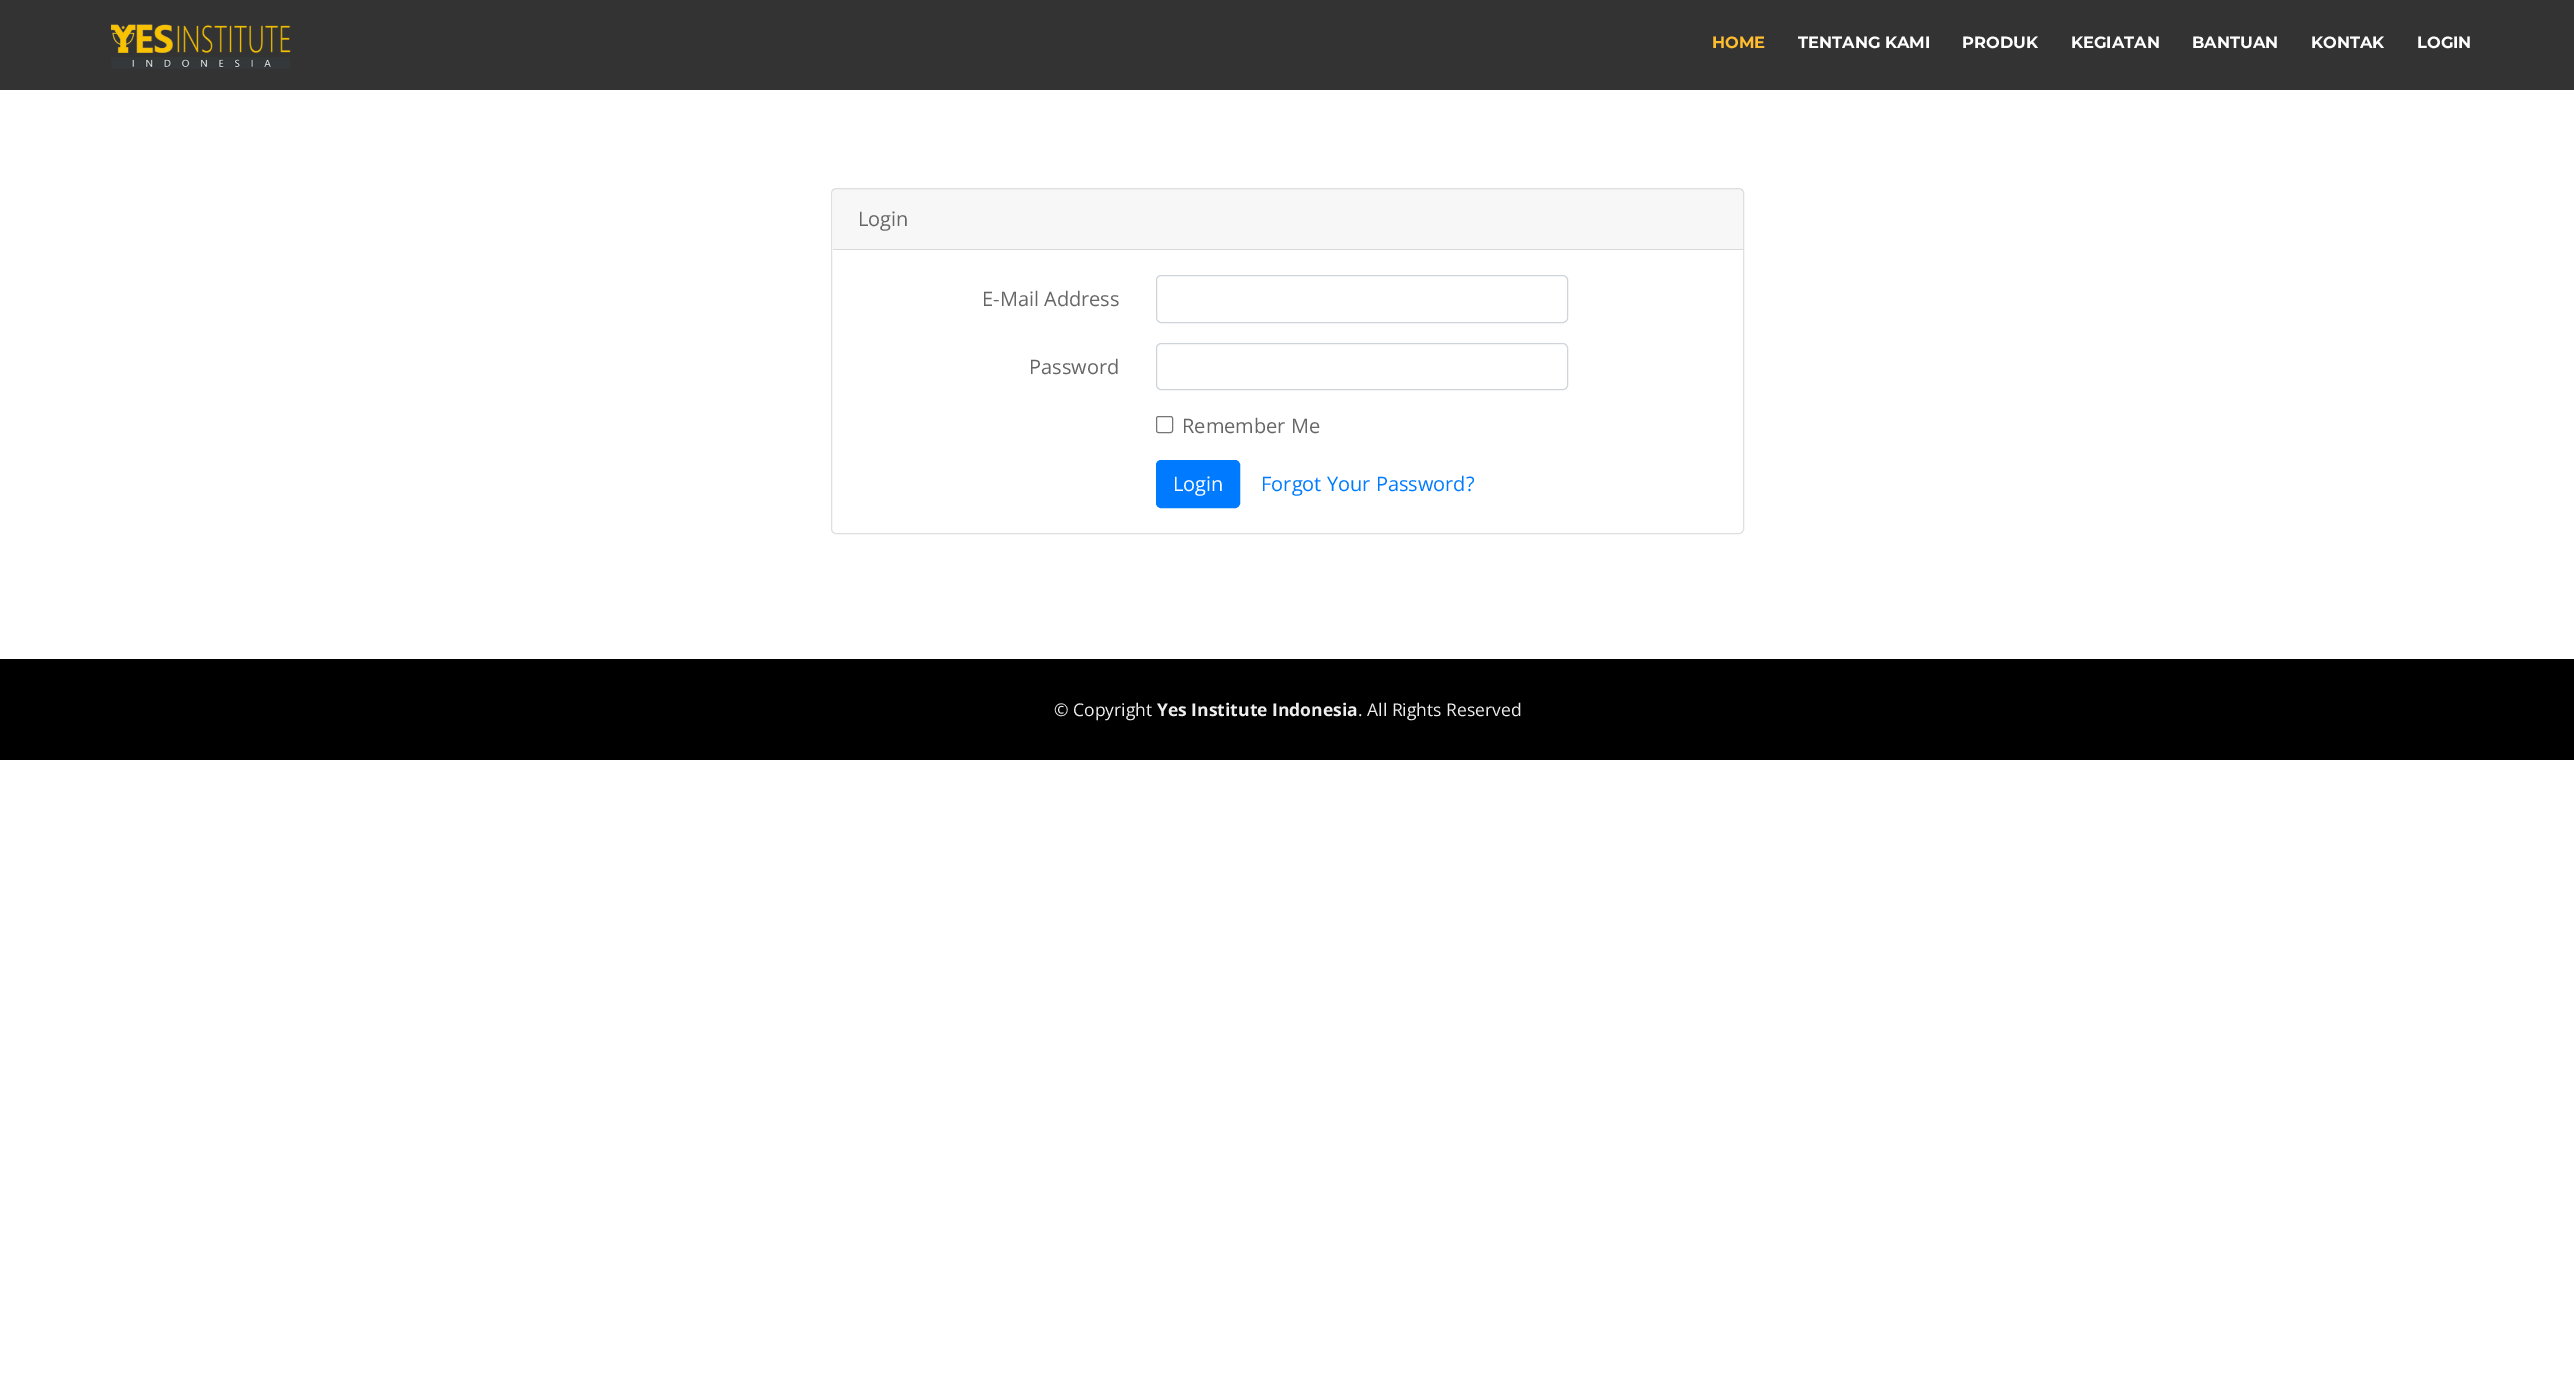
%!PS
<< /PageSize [2574 1384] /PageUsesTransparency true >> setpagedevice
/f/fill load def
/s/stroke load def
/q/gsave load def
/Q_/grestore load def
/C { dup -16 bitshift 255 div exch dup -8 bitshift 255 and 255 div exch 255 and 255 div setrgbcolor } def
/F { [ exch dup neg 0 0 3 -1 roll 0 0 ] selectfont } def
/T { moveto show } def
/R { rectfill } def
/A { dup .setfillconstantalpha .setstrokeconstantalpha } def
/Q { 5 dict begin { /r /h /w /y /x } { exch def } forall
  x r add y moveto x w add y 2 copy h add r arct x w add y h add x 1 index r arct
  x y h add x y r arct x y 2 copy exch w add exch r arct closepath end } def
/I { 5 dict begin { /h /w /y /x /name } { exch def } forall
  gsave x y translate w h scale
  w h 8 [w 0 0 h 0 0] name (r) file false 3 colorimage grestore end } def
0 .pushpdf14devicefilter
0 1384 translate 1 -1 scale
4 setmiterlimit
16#FFFFFF C
0 0 2574 1384 R
16#333333 C
0 0 2574 90 R
(1.rgb) 111 24 180 45 I
/Montserrat-Bold 16.25 F
16#FFBD2F C
(HOME) 1712 48 T
16#FFFFFF C
(TENTANG KAMI) 1798 48 T
(PRODUK) 1962 48 T
(KEGIATAN) 2071 48 T
(BANTUAN) 2192 48 T
(KONTAK) 2311 48 T
(LOGIN) 2417 48 T
16#DFDFDF C
831.5 188.5 912 345 4.5 Q s
0.03 A
16#000000 C
833 189 910 60 R
1 A
16#D8D8D8 C
833 249 910 1 R
/OpenSans-Regular 20 F
16#666666 C
(Login) 858 226 T
(E-Mail Address) 982 306 T
16#CED4DA C
1156.5 275.5 411 47 4.5 Q s
16#666666 C
(Password) 1029 374 T
16#CED4DA C
1156.5 343.5 411 46 4.5 Q s
16#767676 C
1156.5 416.5 16 16 2 Q s
16#666666 C
(Remember Me) 1182 433 T
16#007BFF C
1156.5 460.5 83 47 4.5 Q q f Q_
s
16#FFFFFF C
(Login) 1173 491 T
16#007BFF C
(Forgot Your Password?) 1261 491 T
16#000000 C
0 659 2574 101 R
/OpenSans-Regular 17.5 F
16#EEEEEE C
(© Copyright) 1054 716 T
/OpenSans-Bold 17.5 F
(Yes Institute Indonesia) 1157 716 T
/OpenSans-Regular 17.5 F
(. All Rights Reserved) 1358 716 T
.poppdf14devicefilter showpage
